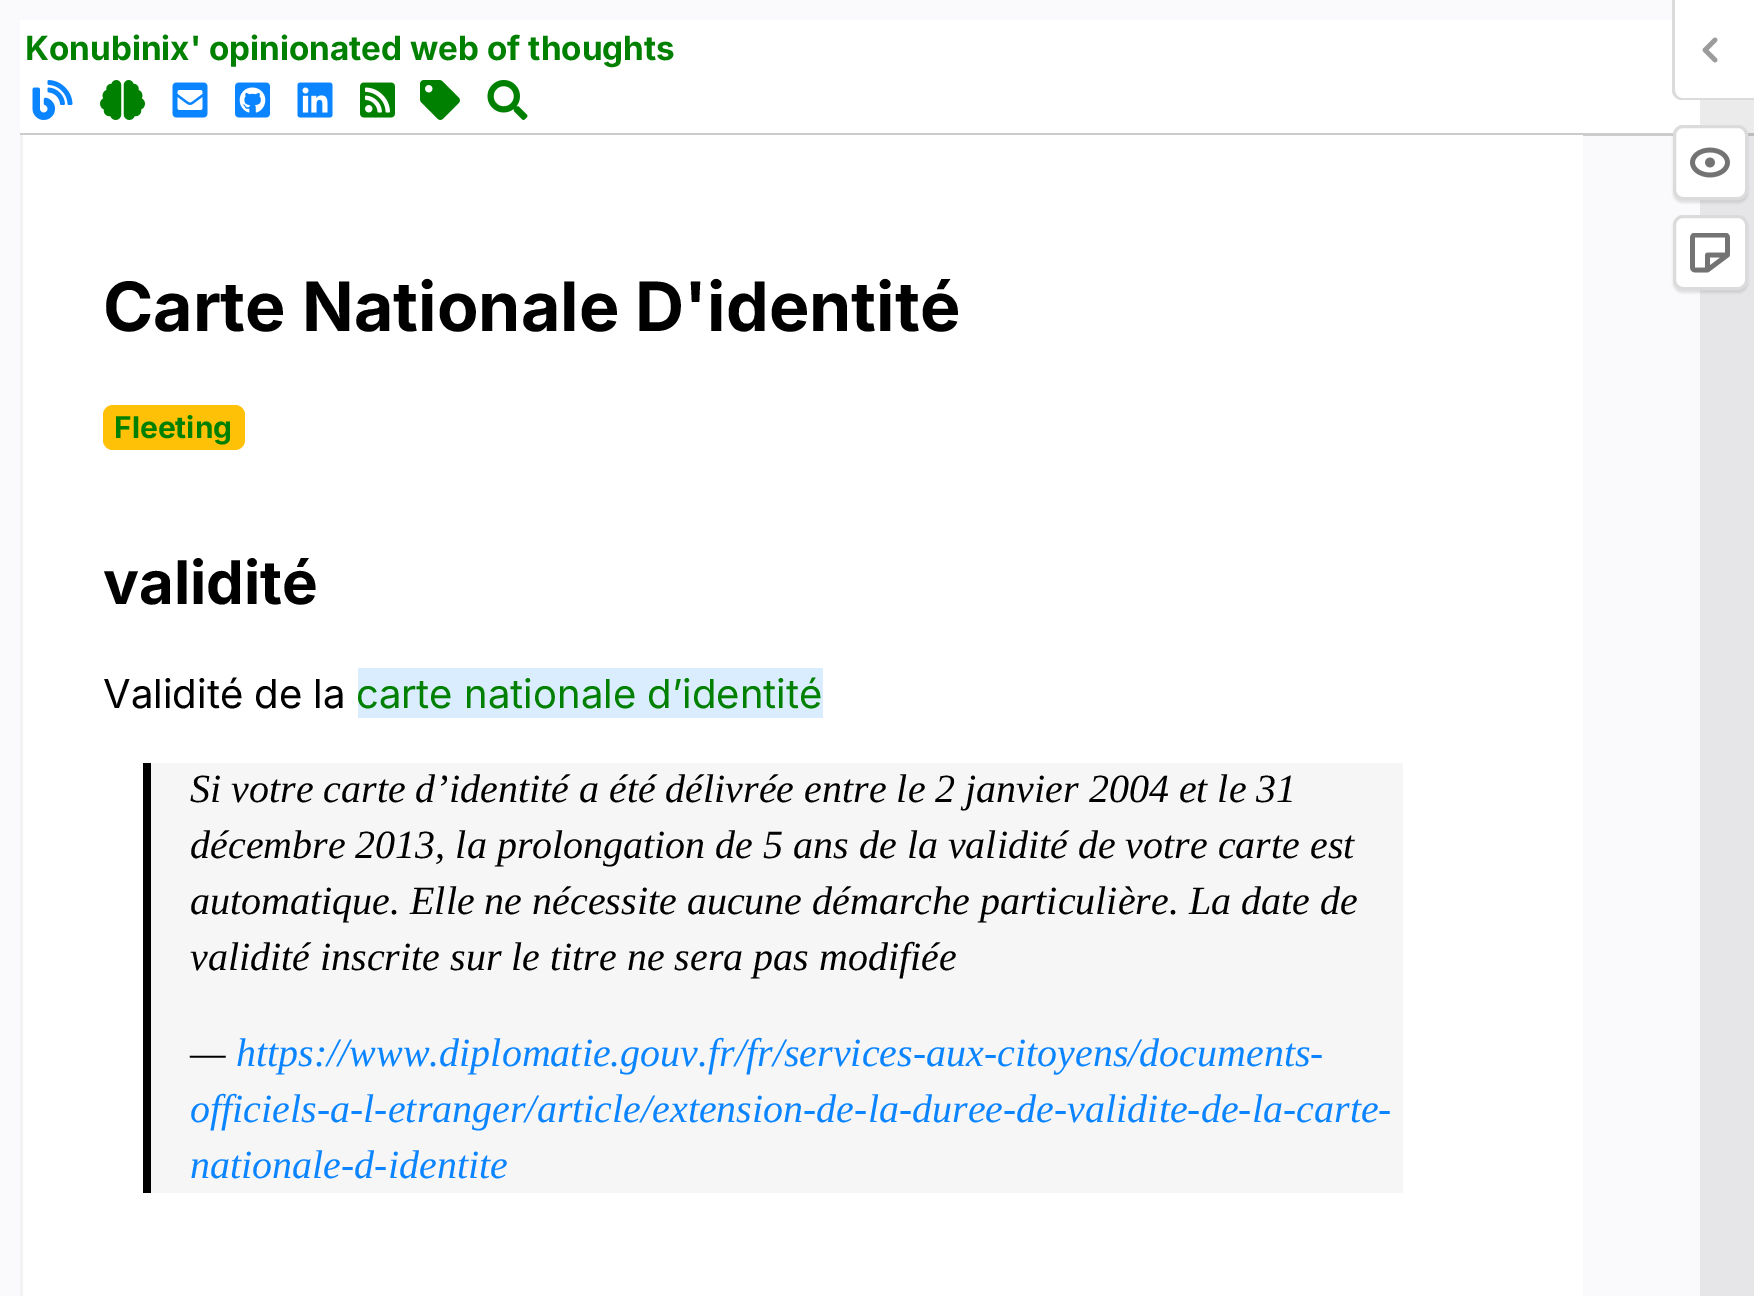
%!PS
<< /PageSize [1754 1296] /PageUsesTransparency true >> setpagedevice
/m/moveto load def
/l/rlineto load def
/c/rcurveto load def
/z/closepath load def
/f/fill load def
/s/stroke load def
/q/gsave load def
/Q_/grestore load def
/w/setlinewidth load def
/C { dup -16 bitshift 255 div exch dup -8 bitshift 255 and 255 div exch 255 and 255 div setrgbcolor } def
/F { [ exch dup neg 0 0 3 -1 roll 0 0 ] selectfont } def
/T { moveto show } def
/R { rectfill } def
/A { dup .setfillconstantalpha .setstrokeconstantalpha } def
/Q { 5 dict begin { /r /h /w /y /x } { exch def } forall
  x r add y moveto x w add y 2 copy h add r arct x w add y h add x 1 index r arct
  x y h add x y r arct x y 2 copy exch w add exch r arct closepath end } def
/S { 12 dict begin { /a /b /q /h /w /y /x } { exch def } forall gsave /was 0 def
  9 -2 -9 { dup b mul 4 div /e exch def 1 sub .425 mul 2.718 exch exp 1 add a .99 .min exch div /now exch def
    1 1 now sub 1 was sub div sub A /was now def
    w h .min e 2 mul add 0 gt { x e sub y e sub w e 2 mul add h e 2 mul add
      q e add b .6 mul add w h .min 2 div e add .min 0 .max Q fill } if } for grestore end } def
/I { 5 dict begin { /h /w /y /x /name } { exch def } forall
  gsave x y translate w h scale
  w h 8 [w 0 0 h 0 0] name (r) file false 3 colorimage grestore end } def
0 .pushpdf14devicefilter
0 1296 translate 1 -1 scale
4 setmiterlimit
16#FAFAFC C
0 0 1754 1296 R
16#E6E6E8 C
1700 136 54 1160 R
16#FFFFFF C
20 20 1680 113 R
16#EBEBEB C
1700 100 54 33 R
16#CCCCCC C
20 133 1654 3 R
16#BCBCBC C
1747 133 7 3 R
/Inter-Bold 33.25 F
16#008000 C
(Konubinix' opinionated web of thoughts) 25 60 T
(1.rgb) 32 80 41 40 I
(2.rgb) 100 80 45 40 I
(3.rgb) 172 82 36 36 I
(4.rgb) 235 82 35 36 I
(5.rgb) 297 82 36 36 I
(6.rgb) 360 82 35 36 I
(7.rgb) 420 80 40 40 I
(8.rgb) 487 80 41 40 I
16#FFFFFF C
1675 0 m 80 0 l 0 98 l -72 0 l -4.5 0 -8 -3.5 -8 -8 c z f
16#DBDBDB C
1672 0 m 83 0 l 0 100 l -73 0 l -5 0 -10 -4 -10 -10 c z 1675 0 m 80 0 l 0 98 l -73 0 l -4 0 -7 -4 -7 -8 c z eofill
(9.rgb) 1702 37 16 26 I
16#000000 C
1673 128 75 75 10 1 .1 S
16#FFFFFF C
1674.5 126.5 72 72 8.5 Q q f Q_
16#DBDBDB C
3 w
s
(10.rgb) 1690 147 40 31 I
16#000000 C
1673 218 75 75 10 1 .1 S
16#FFFFFF C
1674.5 216.5 72 72 8.5 Q q f Q_
16#DBDBDB C
s
(11.rgb) 1690 233 40 40 I
16#FFFFFF C
23 135 1560 1161 R
16#F2F2F2 C
20 135 3 1161 R
/Inter-Bold 68 F
16#000000 C
(Carte Nationale D'identité) 103 331 T
16#FFC107 C
103 405 142 45 10 Q f
/Inter-Bold 30 F
16#008000 C
(Fleeting) 114 438 T
/Inter-Bold 60 F
16#000000 C
(validité) 103 604 T
/Inter-Regular 40 F
(Validité de la) 103 708 T
16#DAEDFF C
358 668 465 50 R
16#008000 C
(carte nationale d’identité) 356 708 T
16#F6F6F6 C
151 763 1252 430 R
16#000000 C
143 763 8 430 R
/LiberationSerif-Italic 40 F
(Si votre carte d’identité a été délivrée entre le 2 janvier 2004 et le 31) 190 802 T
(décembre 2013, la prolongation de 5 ans de la validité de votre carte est) 190 858 T
(automatique. Elle ne nécessite aucune démarche particulière. La date de) 190 914 T
(validité inscrite sur le titre ne sera pas modifiée) 190 970 T
(—) 190 1066 T
16#0A84FF C
(https://www.diplomatie.gouv.fr/fr/services-aux-citoyens/documents-) 236 1066 T
(officiels-a-l-etranger/article/extension-de-la-duree-de-validite-de-la-carte-) 190 1122 T
(nationale-d-identite) 190 1178 T
.poppdf14devicefilter showpage
